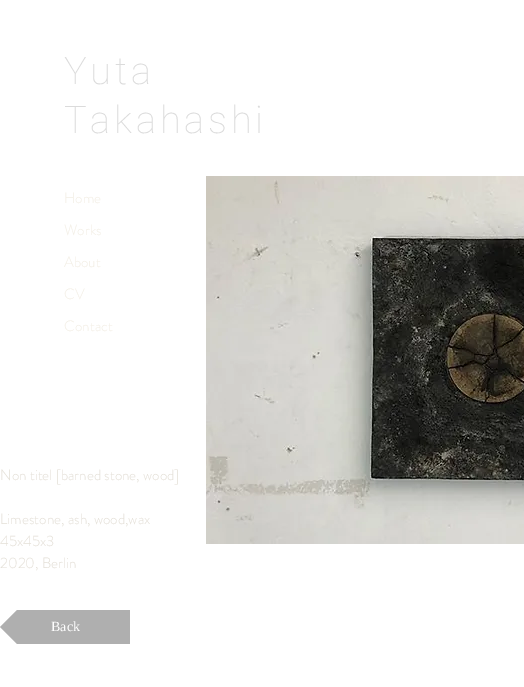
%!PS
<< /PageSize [524 687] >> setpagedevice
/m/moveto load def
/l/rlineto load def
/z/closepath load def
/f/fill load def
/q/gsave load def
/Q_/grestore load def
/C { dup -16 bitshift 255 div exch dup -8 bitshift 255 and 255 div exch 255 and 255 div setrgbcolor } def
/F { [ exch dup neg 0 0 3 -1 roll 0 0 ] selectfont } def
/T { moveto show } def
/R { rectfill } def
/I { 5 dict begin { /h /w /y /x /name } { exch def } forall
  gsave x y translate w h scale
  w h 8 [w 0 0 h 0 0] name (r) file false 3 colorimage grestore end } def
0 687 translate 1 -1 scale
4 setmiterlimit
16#FFFFFF C
0 0 524 687 R
/Roboto-Thin 38 F
16#DBDBDB C
64 84 m 3.75 0 (Yuta) ashow
64 133 m 3.75 0 (Takahashi) ashow
/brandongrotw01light-Light 15 F
16#F2EEE4 C
(Home) 64 203 T
(Works) 64 235 T
(About) 64 267 T
(CV) 64 299 T
(Contact) 64 331 T
16#E3DFD6 C
(Non titel [barned stone, wood]) 0 480 T
(Limestone, ash, wood,wax) 0 524 T
(45x45x3) 0 546 T
(2020, Berlin) 0 568 T
(1.rgb) 206 176 318 368 I
q
0 610 130 34 rectclip
16#AFAFAF C
50 627 m -50 0 l 50 -50 l z 0 627 m 50 0 l 0 50 l z f
Q_
16#AFAFAF C
50 610 80 34 R
/LiberationSerif-Regular 14 F
16#FFFFFF C
(Back) 51 631 T
showpage
